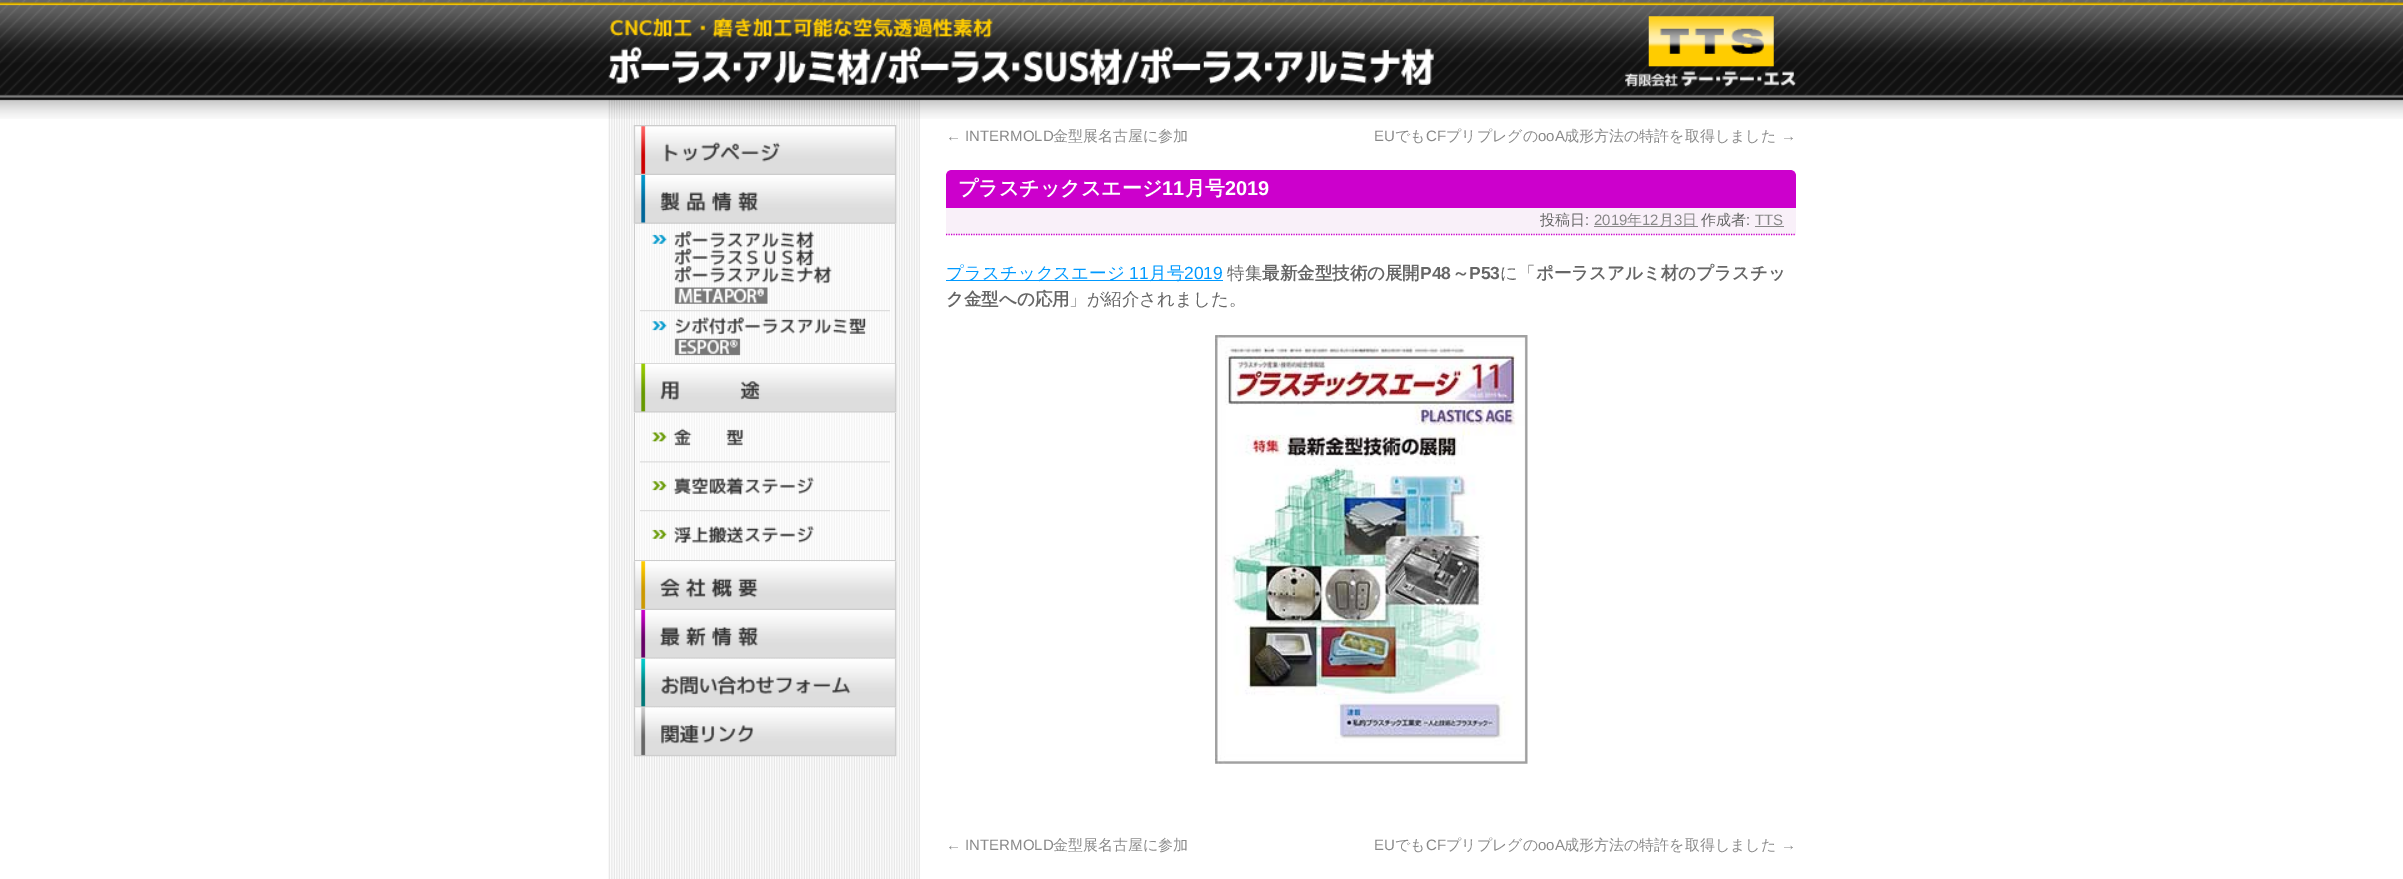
%!PS
<< /PageSize [2403 879] /PageUsesTransparency true >> setpagedevice
/m/moveto load def
/l/rlineto load def
/c/rcurveto load def
/z/closepath load def
/f/fill load def
/s/stroke load def
/w/setlinewidth load def
/C { dup -16 bitshift 255 div exch dup -8 bitshift 255 and 255 div exch 255 and 255 div setrgbcolor } def
/F { [ exch dup neg 0 0 3 -1 roll 0 0 ] selectfont } def
/T { moveto show } def
/R { rectfill } def
/A { dup .setfillconstantalpha .setstrokeconstantalpha } def
/I { 5 dict begin { /h /w /y /x /name } { exch def } forall
  gsave x y translate w h scale
  w h 8 [w 0 0 h 0 0] name (r) file false 3 colorimage grestore end } def
0 .pushpdf14devicefilter
0 879 translate 1 -1 scale
4 setmiterlimit
16#FFFFFF C
0 0 2403 879 R
(1.rgb) 608 99 312 780 I
(2.rgb) 0 0 2403 119 I
(3.rgb) 608 17 826 68 I
(4.rgb) 1625 16 172 71 I
(5.rgb) 633 125 264 50 I
(6.rgb) 633 175 264 49 I
0.5 A
636 224 259 139 R
1 A
16#CCCCCC C
895 224 1 140 R
634 363 262 1 R
634 224 1 140 R
(7.rgb) 652 231 180 73 I
(8.rgb) 640 310 250 2 I
(9.rgb) 652 317 214 39 I
0.5 A
16#FFFFFF C
634 412 261 148 R
1 A
(10.rgb) 633 363 264 50 I
16#CCCCCC C
895 413 1 148 R
634 560 262 1 R
634 413 1 148 R
(11.rgb) 652 428 92 18 I
(12.rgb) 640 461 250 2 I
(13.rgb) 652 477 162 19 I
(8.rgb) 640 510 250 2 I
(14.rgb) 652 526 162 18 I
(15.rgb) 633 561 264 49 I
(16.rgb) 633 610 264 49 I
(17.rgb) 633 658 264 50 I
(18.rgb) 633 707 264 50 I
/LiberationSans-Regular 15 F
16#888888 C
(← INTERMOLD) 946 141 T
/WenQuanYiZenHei-Medium 15 F
(金型展名古屋に参加) 1053 141 T
/LiberationSans-Regular 15 F
(EU) 1374 141 T
/WenQuanYiZenHei-Medium 15 F
(でも) 1395 141 T
/LiberationSans-Regular 15 F
(CF) 1426 141 T
/WenQuanYiZenHei-Medium 15 F
(プリプレグの) 1446 141 T
/LiberationSans-Regular 15 F
(ooA) 1538 141 T
/WenQuanYiZenHei-Medium 15 F
(成形方法の特許を取得しました) 1564 141 T
/LiberationSans-Regular 15 F
(→) 1781 141 T
16#CC00CC C
952 170 m 838 0 l 3.5 0 6 2.5 6 6 c 0 32 l -850 0 l 0 -32 l 0 -3.5 2.5 -6 6 -6 c z f
/WenQuanYiZenHei-Bold 20 F
16#FFFFFF C
(プラスチックスエージ) 958 195 T
/LiberationSans-Bold 20 F
(11) 1162 195 T
/WenQuanYiZenHei-Bold 20 F
(月号) 1185 195 T
/LiberationSans-Bold 20 F
(2019) 1225 195 T
16#F9F0F9 C
946 208 850 27 R
16#CC00CC C
1.2 w
[1.25 1.25] 0 setdash
946 234.5 m 850 0 l s
/WenQuanYiZenHei-Medium 15 F
16#666666 C
(投稿日) 1540 225 T
/LiberationSans-Regular 15 F
(:) 1585 225 T
16#888888 C
(2019) 1594 225 T
1594 226 104 1 R
/WenQuanYiZenHei-Medium 15 F
(年) 1627 225 T
/LiberationSans-Regular 15 F
(12) 1642 225 T
/WenQuanYiZenHei-Medium 15 F
(月) 1659 225 T
/LiberationSans-Regular 15 F
(3) 1674 225 T
/WenQuanYiZenHei-Medium 15 F
(日) 1682 225 T
16#666666 C
(作成者) 1701 225 T
/LiberationSans-Regular 15 F
(:) 1746 225 T
16#888888 C
(TTS) 1755 225 T
1755 226 29 1 R
16#0099FF C
946 280 277 1 R
/WenQuanYiZenHei-Medium 17.5 F
(プラスチックスエージ) 946 279 T
/LiberationSans-Regular 17.5 F
(11) 1129 279 T
/WenQuanYiZenHei-Medium 17.5 F
(月号) 1149 279 T
/LiberationSans-Regular 17.5 F
(2019) 1184 279 T
/WenQuanYiZenHei-Medium 17.5 F
16#666666 C
(特集) 1227 279 T
/WenQuanYiZenHei-Bold 17.5 F
(最新金型技術の展開) 1262 279 T
/LiberationSans-Bold 17.5 F
(P48) 1420 279 T
/WenQuanYiZenHei-Bold 17.5 F
(～) 1452 279 T
/LiberationSans-Bold 17.5 F
(P53) 1469 279 T
/WenQuanYiZenHei-Medium 17.5 F
(に「) 1500 279 T
/WenQuanYiZenHei-Bold 17.5 F
(ポーラスアルミ材のプラスチッ) 1536 279 T
(ク金型への応用) 946 305 T
/WenQuanYiZenHei-Medium 17.5 F
(」が紹介されました。) 1069 305 T
(19.rgb) 1215 335 313 429 I
/LiberationSans-Regular 15 F
16#888888 C
(← INTERMOLD) 946 850 T
/WenQuanYiZenHei-Medium 15 F
(金型展名古屋に参加) 1053 850 T
/LiberationSans-Regular 15 F
(EU) 1374 850 T
/WenQuanYiZenHei-Medium 15 F
(でも) 1395 850 T
/LiberationSans-Regular 15 F
(CF) 1426 850 T
/WenQuanYiZenHei-Medium 15 F
(プリプレグの) 1446 850 T
/LiberationSans-Regular 15 F
(ooA) 1538 850 T
/WenQuanYiZenHei-Medium 15 F
(成形方法の特許を取得しました) 1564 850 T
/LiberationSans-Regular 15 F
(→) 1781 850 T
.poppdf14devicefilter showpage
